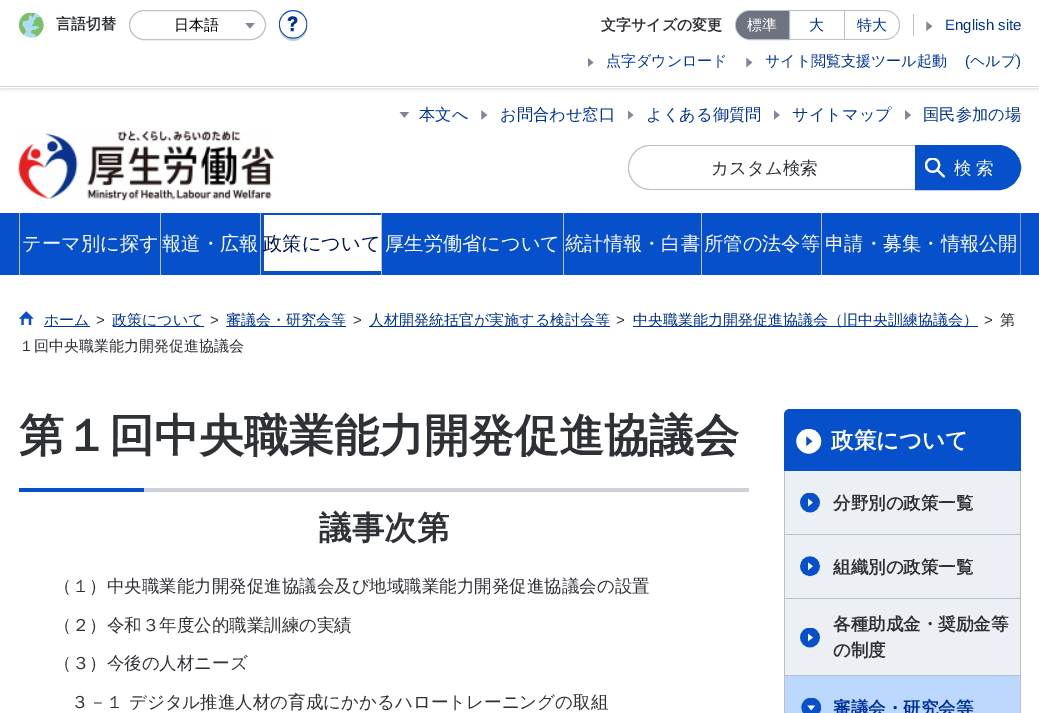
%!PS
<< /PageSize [1039 713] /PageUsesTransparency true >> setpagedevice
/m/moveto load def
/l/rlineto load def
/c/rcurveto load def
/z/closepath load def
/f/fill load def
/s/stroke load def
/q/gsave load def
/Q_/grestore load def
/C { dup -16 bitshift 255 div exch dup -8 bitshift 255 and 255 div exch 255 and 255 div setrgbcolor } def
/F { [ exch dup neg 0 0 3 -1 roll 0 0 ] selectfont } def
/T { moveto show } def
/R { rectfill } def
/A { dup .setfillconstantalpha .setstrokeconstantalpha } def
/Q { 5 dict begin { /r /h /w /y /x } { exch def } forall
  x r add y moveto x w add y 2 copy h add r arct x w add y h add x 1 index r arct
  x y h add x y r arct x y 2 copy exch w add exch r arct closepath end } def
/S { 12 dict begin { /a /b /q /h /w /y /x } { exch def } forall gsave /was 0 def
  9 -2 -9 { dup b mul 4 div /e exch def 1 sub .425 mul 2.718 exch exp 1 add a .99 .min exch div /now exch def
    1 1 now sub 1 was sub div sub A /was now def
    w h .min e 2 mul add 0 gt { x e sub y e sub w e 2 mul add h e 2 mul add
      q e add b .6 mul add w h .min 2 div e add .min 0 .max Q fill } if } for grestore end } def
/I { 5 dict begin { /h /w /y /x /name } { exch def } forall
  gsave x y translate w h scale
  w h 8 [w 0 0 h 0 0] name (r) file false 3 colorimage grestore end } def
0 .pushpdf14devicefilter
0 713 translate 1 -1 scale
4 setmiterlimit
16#FFFFFF C
0 0 1039 713 R
16#D3D6DD C
0 1 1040 88 0 2 1 S
16#FFFFFF C
0 0 1039 88 R
16#D3D6DD C
0 86 1039 1 R
(1.rgb) 19 13 25 25 I
/WenQuanYiZenHei-Bold 15 F
16#2E3136 C
(言語切替) 56 29 T
16#BBBFCA C
129.5 10.5 136 29 14.5 Q s
/WenQuanYiZenHei-Medium 15 F
16#000000 C
(日本語) 174 30 T
q
245 23 10 6 rectclip
16#818796 C
255 22.5 m -5 6 l -5 -6 l z eofill
Q_
(2.rgb) 279 10 29 31 I
/WenQuanYiZenHei-Bold 15 F
16#2E3136 C
(文字サイズの変更) 601 30 T
16#BBBFCA C
750 10.5 m 39.5 0 l 0 29 l -39.5 0 l -8 0 -14.5 -6.5 -14.5 -14.5 c 0 -8 6.5 -14.5 14.5 -14.5 c z s
16#6E7380 C
750 11 m 39 0 l 0 28 l -39 0 l -7.5 0 -14 -6.5 -14 -14 c 0 -7.5 6.5 -14 14 -14 c z f
/WenQuanYiZenHei-Medium 15 F
16#FFFFFF C
(標準) 747 30 T
16#BBBFCA C
790 10 55 1 R
844 10 1 30 R
790 39 55 1 R
16#003399 C
(大) 809 30 T
16#BBBFCA C
845 10 m 40 0 l 8 0 15 7 15 15 c 0 8 -7 15 -15 15 c -40 0 l z 845 11 m 40 0 l 8 0 14 6 14 14 c 0 8 -6 14 -14 14 c -40 0 l z eofill
16#003399 C
(特大) 857 30 T
16#BBBFCA C
913 14 1 22 R
(3.rgb) 926 21 7 10 I
/LiberationSans-Regular 15 F
16#003399 C
(English site) 945 30 T
(4.rgb) 588 58 6 9 I
/WenQuanYiZenHei-Medium 15 F
(点字ダウンロード) 606 66 T
(5.rgb) 746 58 7 10 I
(サイト閲覧支援ツール起動) 765 66 T
/LiberationSans-Regular 15 F
(\() 965 66 T
/WenQuanYiZenHei-Medium 15 F
(ヘルプ) 970 66 T
/LiberationSans-Regular 15 F
(\)) 1016 66 T
(6.rgb) 18 131 256 70 I
(7.rgb) 399 112 10 6 I
/WenQuanYiZenHei-Medium 16.25 F
(本文へ) 419 120 T
(8.rgb) 481 110 7 10 I
(お問合わせ窓口) 500 120 T
(9.rgb) 628 110 6 10 I
(よくある御質問) 646 120 T
(10.rgb) 774 110 6 10 I
(サイトマップ) 792 120 T
(11.rgb) 905 110 6 10 I
(国民参加の場) 923 120 T
16#BBBFCA C
650 145 m 265 0 l 0 45 l -265 0 l -12 0 -22 -10 -22 -22 c 0 -13 10 -23 22 -23 c z 650 146 m 265 0 l 0 43 l -265 0 l -12 0 -21 -10 -21 -21 c 0 -12 9 -22 21 -22 c z eofill
/WenQuanYiZenHei-Medium 17.5 F
16#2E3136 C
(カスタム検索) 711 174 T
16#0650CB C
915.5 145.5 m 83 0 l 12 0 22 10 22 22 c 0 12 -10 22 -22 22 c -83 0 l z q f Q_
s
(12.rgb) 925 158 20 20 I
16#FFFFFF C
954 174 m 4 0 (検索) ashow
16#0650CB C
0 213 1039 62 R
16#BBBFCA C
19 213 1 62 R
/WenQuanYiZenHei-Medium 19.25 F
16#FFFFFF C
(テーマ別に探す) 22 250 T
16#BBBFCA C
160 213 1 62 R
16#FFFFFF C
(報道・広報) 162 250 T
16#BBBFCA C
260 213 1 62 R
16#FFFFFF C
264 215 117 56 R
16#001750 C
(政策について) 263 250 T
16#BBBFCA C
381 213 1 62 R
16#FFFFFF C
(厚生労働省について) 385 250 T
16#BBBFCA C
563 213 1 62 R
16#FFFFFF C
(統計情報・白書) 565 250 T
16#BBBFCA C
701 213 1 62 R
16#FFFFFF C
(所管の法令等) 704 250 T
16#8899CC C
1020 213 1 62 R
16#BBBFCA C
821 213 1 62 R
16#FFFFFF C
(申請・募集・情報公開) 825 250 T
(13.rgb) 19 311 15 14 I
16#003399 C
44 326 46 1 R
/WenQuanYiZenHei-Medium 15 F
(ホーム) 44 325 T
/LiberationSans-Regular 15 F
16#2E3136 C
(>) 96 325 T
16#003399 C
113 326 91 1 R
/WenQuanYiZenHei-Medium 15 F
(政策について) 112 325 T
/LiberationSans-Regular 15 F
16#2E3136 C
(>) 210 325 T
16#003399 C
226 326 120 1 R
/WenQuanYiZenHei-Medium 15 F
(審議会・研究会等) 226 325 T
/LiberationSans-Regular 15 F
16#2E3136 C
(>) 353 325 T
16#003399 C
369 326 241 1 R
/WenQuanYiZenHei-Medium 15 F
(人材開発統括官が実施する検討会等) 369 325 T
/LiberationSans-Regular 15 F
16#2E3136 C
(>) 616 325 T
16#003399 C
633 326 345 1 R
/WenQuanYiZenHei-Medium 15 F
(中央職業能力開発促進協議会（旧中央訓練協議会）) 633 325 T
/LiberationSans-Regular 15 F
16#2E3136 C
(>) 984 325 T
/WenQuanYiZenHei-Medium 15 F
(第) 1000 325 T
(１回中央職業能力開発促進協議会) 19 351 T
/WenQuanYiZenHei-Bold 45 F
(第１回中央職業能力開発促進協議会) 19 451 T
16#CED1D9 C
144 488 605 4 R
16#0650CB C
19 488 125 4 R
/WenQuanYiZenHei-Bold 32.5 F
16#2E3136 C
(議事次第) 319 539 T
/WenQuanYiZenHei-Medium 17.5 F
(（１）中央職業能力開発促進協議会及び地域職業能力開発促進協議会の設置) 54 592 T
(（２）令和３年度公的職業訓練の実績) 54 631 T
(（３）今後の人材ニーズ) 54 669 T
(３－１ デジタル推進人材の育成にかかるハロートレーニングの取組) 71 708 T
16#0650CB C
790 409 m 225 0 l 3.5 0 6 2.5 6 6 c 0 56 l -237 0 l 0 -56 l 0 -3.5 2.5 -6 6 -6 c z f
(14.rgb) 796 429 26 25 I
/WenQuanYiZenHei-Bold 22.5 F
16#FFFFFF C
(政策について) 831 448 T
16#BBBFCA C
784 471 m 237 0 l 0 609 l 0 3 -3 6 -6 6 c -225 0 l -3 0 -6 -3 -6 -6 c z 785 471 m 235 0 l 0 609 l 0 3 -2 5 -5 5 c -225 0 l -3 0 -5 -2 -5 -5 c z eofill
16#ECEFF4 C
785 471 235 63 R
(15.rgb) 800 493 20 20 I
/WenQuanYiZenHei-Bold 17.5 F
16#2E3136 C
(分野別の政策一覧) 833 509 T
16#ECEFF4 C
785 535 235 63 R
16#BBBFCA C
785 534 235 1 R
(16.rgb) 800 556 21 21 I
16#2E3136 C
(組織別の政策一覧) 833 573 T
16#ECEFF4 C
785 599 235 76 R
16#BBBFCA C
785 598 235 1 R
16#2E3136 C
(各種助成金・奨励金等) 833 630 T
(17.rgb) 800 628 20 20 I
(の制度) 833 656 T
16#BBBFCA C
785 675 235 1 R
16#BCD8FF C
785 676 235 37 R
(18.rgb) 801 698 20 15 I
16#003399 C
(審議会・研究会等) 833 714 T
.poppdf14devicefilter showpage
